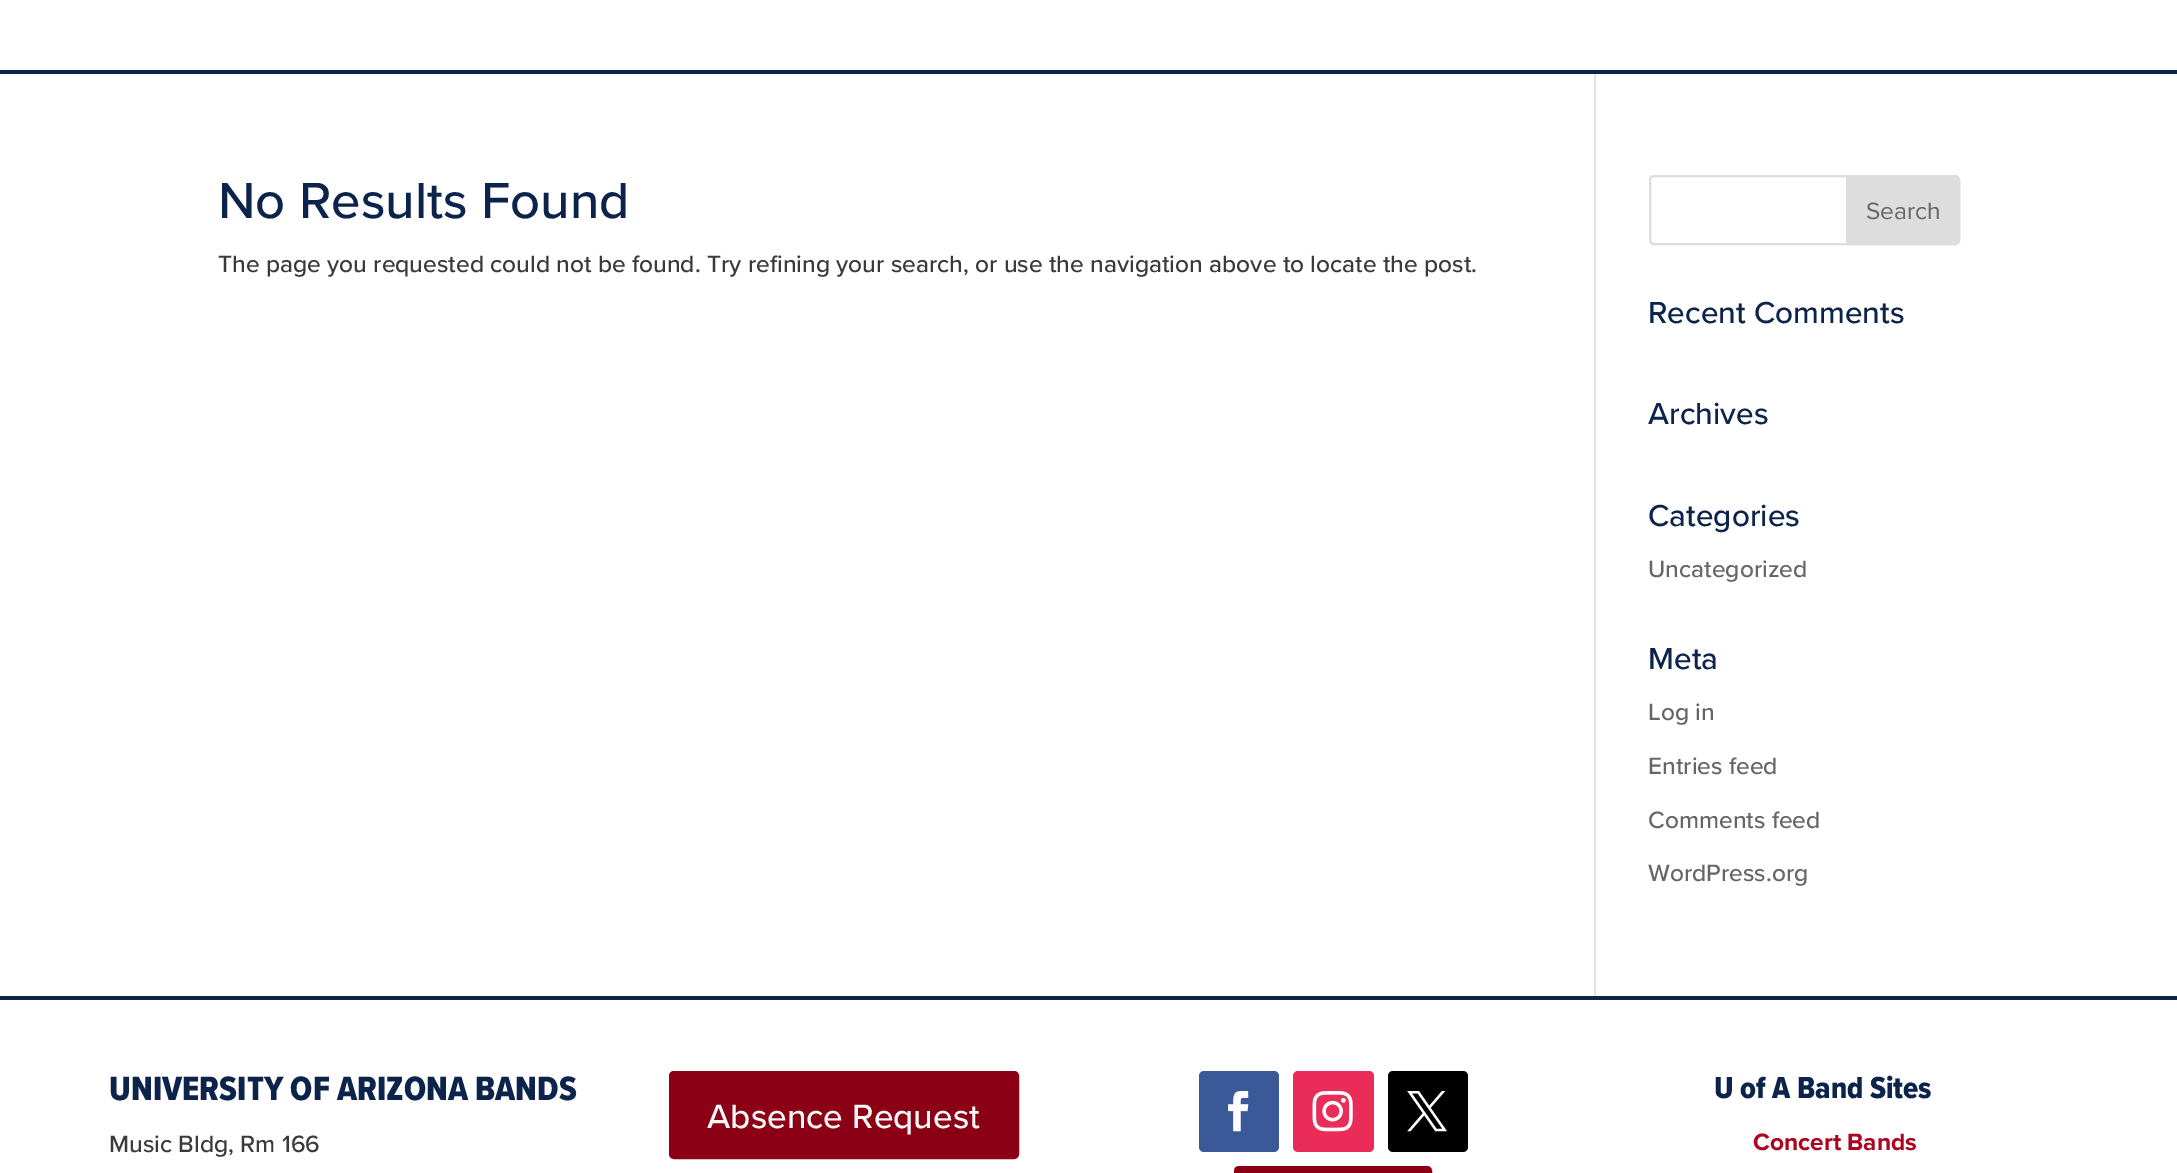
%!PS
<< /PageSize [2177 1173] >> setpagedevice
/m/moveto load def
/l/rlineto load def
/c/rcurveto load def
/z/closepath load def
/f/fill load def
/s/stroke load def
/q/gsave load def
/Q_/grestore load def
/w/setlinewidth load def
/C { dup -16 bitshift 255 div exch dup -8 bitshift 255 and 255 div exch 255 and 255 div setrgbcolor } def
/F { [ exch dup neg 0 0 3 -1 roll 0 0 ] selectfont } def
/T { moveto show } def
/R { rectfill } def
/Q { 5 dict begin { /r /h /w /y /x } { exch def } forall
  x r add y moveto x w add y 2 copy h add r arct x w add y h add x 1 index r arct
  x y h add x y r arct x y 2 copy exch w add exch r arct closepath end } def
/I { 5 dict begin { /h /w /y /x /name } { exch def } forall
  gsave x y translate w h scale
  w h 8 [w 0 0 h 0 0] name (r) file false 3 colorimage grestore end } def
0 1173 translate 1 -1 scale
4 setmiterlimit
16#FFFFFF C
0 0 2177 1173 R
16#0C234B C
0 70 2177 4 R
16#E2E2E2 C
1594 74 2 922 R
/ProximaNova-Medium 52.5 F
16#0C234B C
(No Results Found) 218 218 T
/ProximaNova-Medium 24.5 F
16#3A3A3A C
(The page you requested could not be found. Try refining your search, or use the navigation above to locate the post.) 218 272 T
16#DDDDDD C
2 w
1650 176 309 68 4 Q s
1847 176 m 108 0 l 2 0 4 2 4 4 c 0 60 l 0 2 -2 4 -4 4 c -108 0 l z q f Q_
s
/ProximaNova-Regular 24.5 F
16#666666 C
(Search) 1866 219 T
/ProximaNova-Medium 31.5 F
16#0C234B C
(Recent Comments) 1648 323 T
(Archives) 1648 424 T
(Categories) 1648 526 T
/ProximaNova-Medium 24.5 F
16#666666 C
(Uncategorized) 1648 577 T
/ProximaNova-Medium 31.5 F
16#0C234B C
(Meta) 1648 669 T
/ProximaNova-Medium 24.5 F
16#666666 C
(Log in) 1648 720 T
(Entries feed) 1648 774 T
(Comments feed) 1648 828 T
(WordPress.org) 1648 881 T
16#0C234B C
0 996 2177 4 R
/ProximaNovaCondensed-ExtraBold 35 F
(UNIVERSITY OF ARIZONA BANDS) 109 1100 T
/ProximaNova-Medium 24.5 F
16#3A3A3A C
(Music Bldg, Rm 166) 109 1152 T
16#8B0015 C
671 1073 346 84 3 Q q f Q_
4 w
s
/ProximaNova-Medium 35 F
16#F7F9F9 C
(Absence Request) 707 1128 T
16#3B5998 C
1199 1071 80 81 5 Q f
(1.rgb) 1228 1091 21 41 I
16#EA2C59 C
1293 1071 81 81 5 Q f
(2.rgb) 1312 1091 41 41 I
16#000000 C
1388 1071 80 81 5 Q f
(3.rgb) 1407 1091 40 41 I
16#8B0015 C
1236 1168 194 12 3 Q q f Q_
s
/ProximaNovaCondensed-ExtraBold 31.5 F
16#0C234B C
(U of A Band Sites) 1714 1098 T
/ProximaNova-Bold 24.5 F
16#AB0520 C
(Concert Bands) 1753 1150 T
showpage
